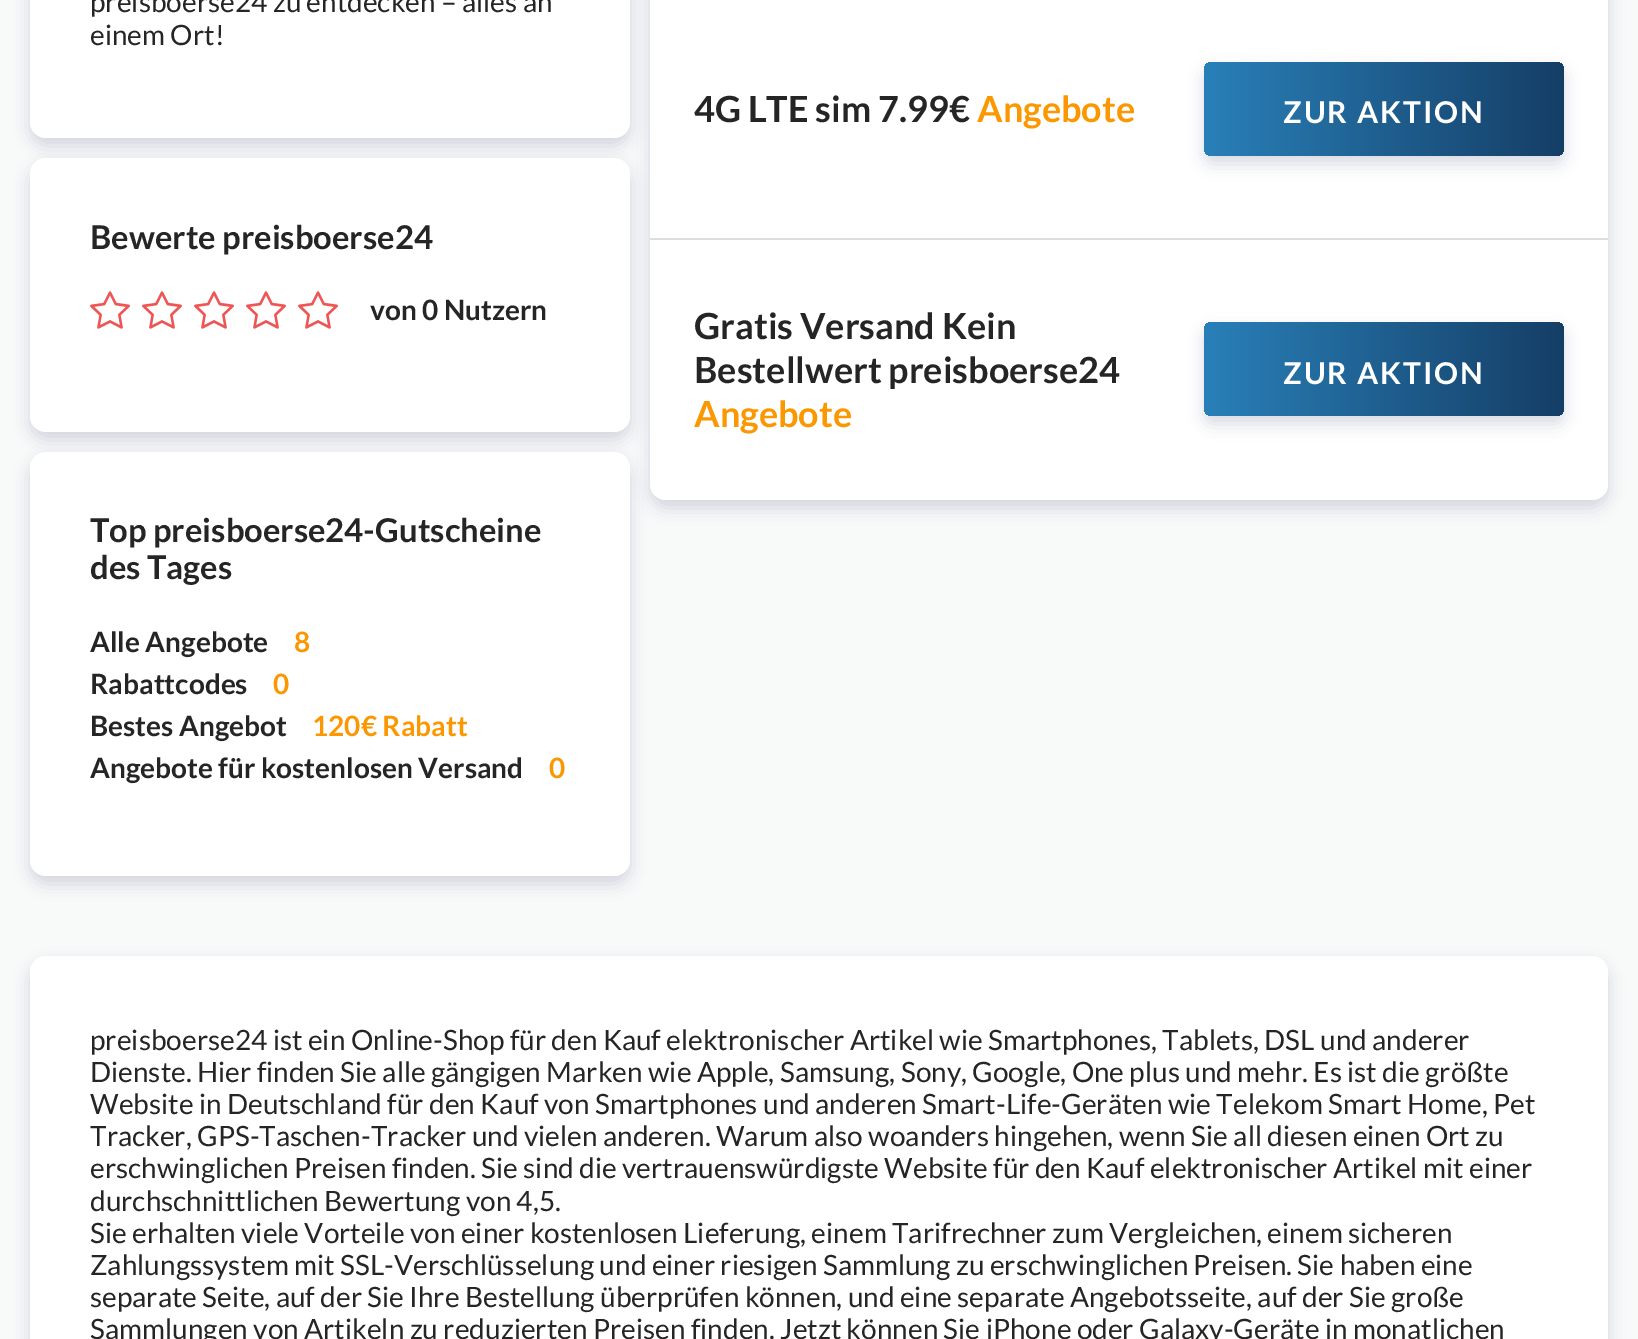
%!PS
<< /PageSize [1638 1339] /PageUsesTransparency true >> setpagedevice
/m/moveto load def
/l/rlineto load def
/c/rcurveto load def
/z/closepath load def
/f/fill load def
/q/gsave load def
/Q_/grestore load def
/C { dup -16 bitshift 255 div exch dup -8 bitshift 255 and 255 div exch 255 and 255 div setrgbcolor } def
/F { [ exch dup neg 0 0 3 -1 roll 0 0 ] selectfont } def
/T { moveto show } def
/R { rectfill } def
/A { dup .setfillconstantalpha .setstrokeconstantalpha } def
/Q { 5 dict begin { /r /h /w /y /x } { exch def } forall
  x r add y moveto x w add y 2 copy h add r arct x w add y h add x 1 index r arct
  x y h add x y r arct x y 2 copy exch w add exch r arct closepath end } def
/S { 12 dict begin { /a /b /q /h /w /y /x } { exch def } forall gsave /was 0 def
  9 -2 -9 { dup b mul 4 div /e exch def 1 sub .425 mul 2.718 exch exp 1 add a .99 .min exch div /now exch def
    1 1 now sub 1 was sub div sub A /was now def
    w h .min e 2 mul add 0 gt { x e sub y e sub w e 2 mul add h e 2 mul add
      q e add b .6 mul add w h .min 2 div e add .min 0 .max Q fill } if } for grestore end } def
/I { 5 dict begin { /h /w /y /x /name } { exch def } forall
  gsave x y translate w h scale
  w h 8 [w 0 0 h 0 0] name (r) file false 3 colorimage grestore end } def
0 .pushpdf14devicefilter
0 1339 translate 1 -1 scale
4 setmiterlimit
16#F8F9F9 C
0 0 1638 1339 R
16#0A1646 C
650 -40 958 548 16 8 .15 S
16#FFFFFF C
650 0 958 238 R
16#0A1646 C
30 -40 600 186 16 8 .15 S
16#FFFFFF C
30 -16 600 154 16 Q f
/Lato-Regular 28 F
16#252525 C
(preisboerse24 zu entdecken – alles an) 90 12 T
(einem Ort!) 90 45 T
16#DDDDDD C
650 238 958 2 R
16#FFFFFF C
650 240 m 958 0 l 0 244 l 0 9 -7 16 -16 16 c -926 0 l -9 0 -16 -7 -16 -16 c z f
16#0A1646 C
30 166 600 274 16 8 .15 S
16#FFFFFF C
30 158 600 274 16 Q f
/Lato-Bold 32.75 F
16#252525 C
(Bewerte preisboerse24) 90 249 T
(1.rgb) 90 291 40 38 I
(1.rgb) 142 291 40 38 I
(1.rgb) 194 291 40 38 I
(1.rgb) 246 291 40 38 I
(1.rgb) 298 291 40 38 I
/Lato-Bold 28 F
(von 0 Nutzern) 370 320 T
16#0A1646 C
30 460 600 424 16 8 .15 S
16#FFFFFF C
30 452 600 424 16 Q f
/Lato-Bold 32.75 F
16#252525 C
(Top preisboerse24-Gutscheine) 90 542 T
(des Tages) 90 579 T
/Lato-Bold 28 F
(Alle Angebote) 90 652 T
16#FB9700 C
(8) 294 652 T
16#252525 C
(Rabattcodes) 90 694 T
16#FB9700 C
(0) 273 694 T
16#252525 C
(Bestes Angebot) 90 736 T
16#FB9700 C
(120€ Rabatt) 312 736 T
16#252525 C
(Angebote für kostenlosen Versand) 90 778 T
16#FB9700 C
(0) 549 778 T
/Lato-Bold 36 F
16#252525 C
(4G LTE sim 7.99€) 694 122 T
16#FB9700 C
(Angebote) 977 122 T
16#0A1646 C
1204 70 360 94 8 8 .15 S
q 1204 62 360 94 8 Q clip newpath
<< /ShadingType 2 /ColorSpace /DeviceRGB /Coords [1204 109 1564 109] /Extend [true true] /Function << /FunctionType 2 /Domain [0 1] /C0 [.161 .502 .725] /C1 [.082 .243 .4] /N 1 >> >> shfill Q_
/Lato-Bold 30 F
16#FFFFFF C
1283 123 m 2 0 (ZUR AKTION) ashow
/Lato-Bold 36 F
16#252525 C
(Gratis Versand Kein) 694 339 T
(Bestellwert preisboerse24) 694 383 T
16#FB9700 C
(Angebote) 694 427 T
16#0A1646 C
1204 330 360 94 8 8 .15 S
q 1204 322 360 94 8 Q clip newpath
<< /ShadingType 2 /ColorSpace /DeviceRGB /Coords [1204 369 1564 369] /Extend [true true] /Function << /FunctionType 2 /Domain [0 1] /C0 [.161 .502 .725] /C1 [.082 .243 .4] /N 1 >> >> shfill Q_
/Lato-Bold 30 F
16#FFFFFF C
1283 384 m 2 0 (ZUR AKTION) ashow
16#0A1646 C
30 964 1578 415 16 8 .15 S
16#FFFFFF C
30 956 1578 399 16 Q f
/Lato-Regular 28 F
16#252525 C
(preisboerse24 ist ein Online-Shop für den Kauf elektronischer Artikel wie Smartphones, Tablets, DSL und anderer) 90 1050 T
(Dienste. Hier finden Sie alle gängigen Marken wie Apple, Samsung, Sony, Google, One plus und mehr. Es ist die größte) 90 1082 T
(Website in Deutschland für den Kauf von Smartphones und anderen Smart-Life-Geräten wie Telekom Smart Home, Pet) 90 1114 T
(Tracker, GPS-Taschen-Tracker und vielen anderen. Warum also woanders hingehen, wenn Sie all diesen einen Ort zu) 90 1146 T
(erschwinglichen Preisen finden. Sie sind die vertrauenswürdigste Website für den Kauf elektronischer Artikel mit einer) 90 1178 T
(durchschnittlichen Bewertung von 4,5.) 90 1211 T
(Sie erhalten viele Vorteile von einer kostenlosen Lieferung, einem Tarifrechner zum Vergleichen, einem sicheren) 90 1243 T
(Zahlungssystem mit SSL-Verschlüsselung und einer riesigen Sammlung zu erschwinglichen Preisen. Sie haben eine) 90 1275 T
(separate Seite, auf der Sie Ihre Bestellung überprüfen können, und eine separate Angebotsseite, auf der Sie große) 90 1307 T
(Sammlungen von Artikeln zu reduzierten Preisen finden. Jetzt können Sie iPhone oder Galaxy-Geräte in monatlichen) 90 1339 T
.poppdf14devicefilter showpage
